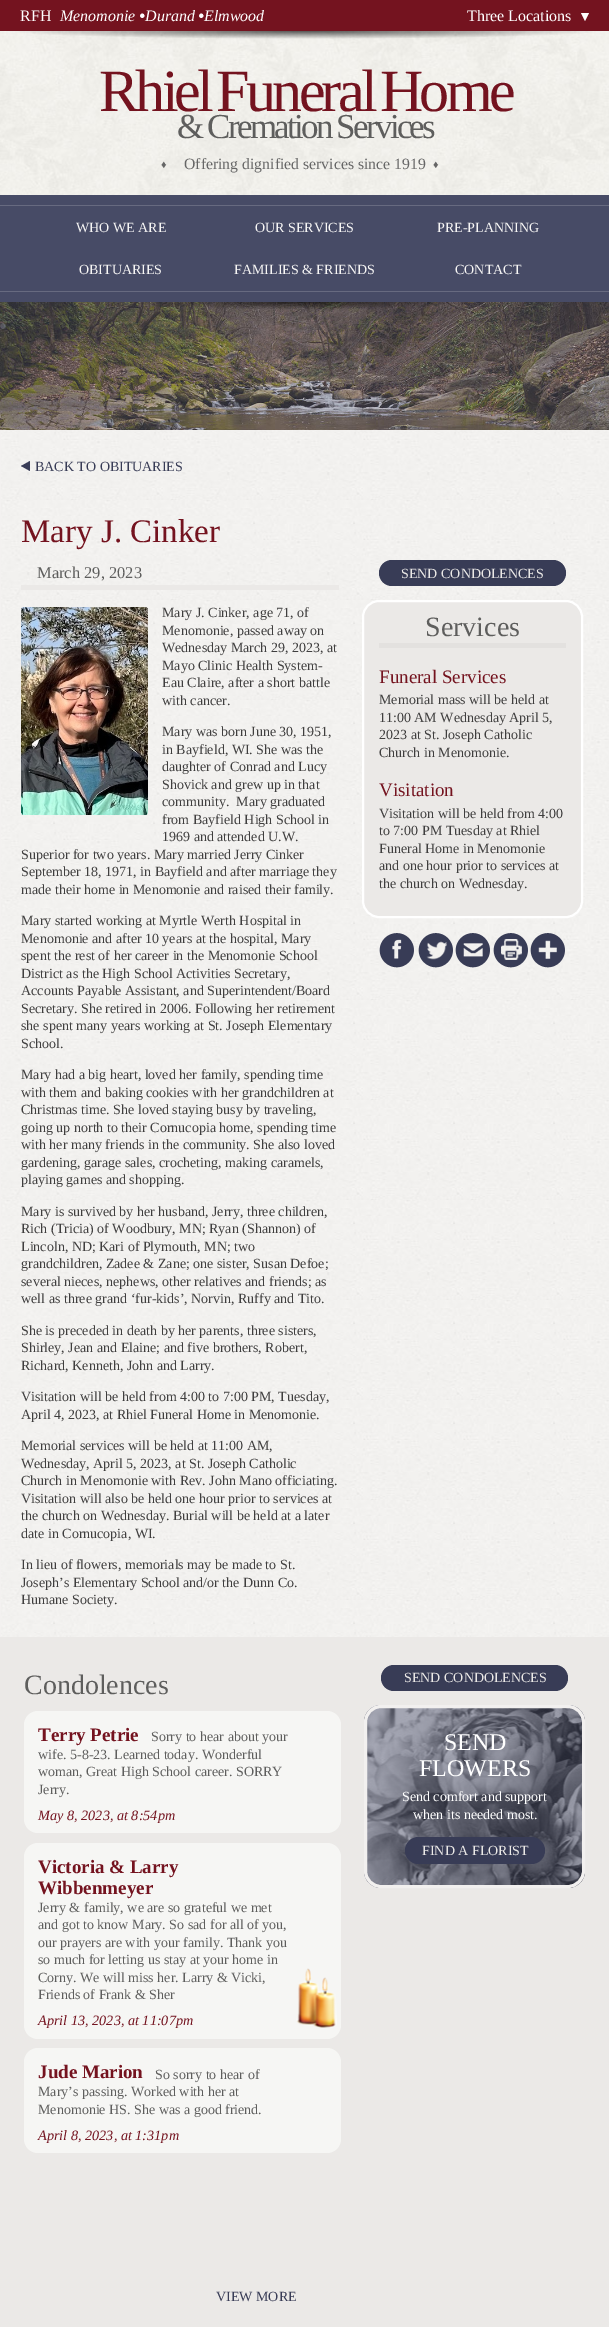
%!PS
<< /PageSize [609 2327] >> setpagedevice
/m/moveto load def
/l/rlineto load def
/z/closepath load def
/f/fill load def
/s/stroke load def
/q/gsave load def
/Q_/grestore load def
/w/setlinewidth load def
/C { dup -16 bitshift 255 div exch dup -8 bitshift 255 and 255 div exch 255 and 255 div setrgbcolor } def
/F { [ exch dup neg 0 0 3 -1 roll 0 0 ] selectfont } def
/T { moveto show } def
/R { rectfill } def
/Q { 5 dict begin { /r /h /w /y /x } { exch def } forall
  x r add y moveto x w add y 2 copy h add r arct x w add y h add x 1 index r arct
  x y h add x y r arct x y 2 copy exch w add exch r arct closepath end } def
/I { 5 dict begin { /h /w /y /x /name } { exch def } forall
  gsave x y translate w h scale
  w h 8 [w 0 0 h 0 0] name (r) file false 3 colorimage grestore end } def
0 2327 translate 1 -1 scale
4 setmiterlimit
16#F3F1F0 C
0 0 609 2327 R
(1.rgb) 1 430 608 1207 I
16#74131F C
0 0 609 31 R
/LiberationSerif-Regular 16 F
16#FFFFFF C
(RFH) 20 21 T
/LiberationSerif-Italic 16 F
(Menomonie) 60 21 T
/LiberationSerif-Regular 19 F
(•) 139 22 T
/LiberationSerif-Italic 16 F
(Durand) 145 21 T
/LiberationSerif-Regular 19 F
(•) 198 22 T
/LiberationSerif-Italic 16 F
(Elmwood) 204 21 T
/LiberationSerif-Regular 16 F
(Three Locations) 467 21 T
581 13 m 8 0 l -4 8 l z f
(2.rgb) 0 31 609 164 I
/LiberationSerif-Regular 60 F
16#74131F C
99 111 m -5 0 32 -3.75 0 (Rhiel Funeral Home) awidthshow
/LiberationSerif-Regular 35 F
16#5E5E5D C
177 138 m -2.75 0 (& Cremation Services) ashow
/LiberationSerif-Regular 11 F
16#666666 C
161 168 m 9 0 (♦) ashow
/LiberationSerif-Regular 15.75 F
(Offering dignified services since 1919) 184 169 T
/LiberationSerif-Regular 11 F
433 168 m 9 0 (♦) ashow
16#474B66 C
0 195 609 107 R
16#676A80 C
0 205 609 1 R
0 291 609 1 R
/LiberationSerif-Regular 14 F
16#F7F6F5 C
(WHO WE ARE) 76 232 T
(OUR SERVICES) 255 232 T
(PRE-PLANNING) 437 232 T
(OBITUARIES) 79 274 T
(FAMILIES & FRIENDS) 234 274 T
(CONTACT) 455 274 T
(3.rgb) 0 302 609 128 I
16#383C56 C
30 461 m 0 10 l -9 -5 l z f
(BACK TO OBITUARIES) 35 471 T
16#EBE9E7 C
21 585 318 5 R
/LiberationSerif-Regular 33 F
16#74131F C
(Mary J. Cinker) 21 542 T
/LiberationSerif-Regular 16.5 F
16#5E5E5D C
(March 29, 2023) 37 578 T
(4.rgb) 21 607 127 208 I
/LiberationSerif-Regular 14 F
16#3F3E3E C
(Mary J. Cinker, age 71, of) 162 617 T
(Menomonie, passed away on) 162 635 T
(Wednesday March 29, 2023, at) 162 652 T
(Mayo Clinic Health System-) 162 670 T
(Eau Claire, after a short battle) 162 687 T
(with cancer.) 162 705 T
(Mary was born June 30, 1951,) 162 736 T
(in Bayfield, WI. She was the) 162 754 T
(daughter of Conrad and Lucy) 162 771 T
(Shovick and grew up in that) 162 789 T
(community.  Mary graduated) 162 806 T
(from Bayfield High School in) 162 824 T
(1969 and attended U.W.) 162 841 T
(Superior for two years. Mary married Jerry Cinker) 21 859 T
(September 18, 1971, in Bayfield and after marriage they) 21 876 T
(made their home in Menomonie and raised their family.) 21 894 T
(Mary started working at Myrtle Werth Hospital in) 21 925 T
(Menomonie and after 10 years at the hospital, Mary) 21 943 T
(spent the rest of her career in the Menomonie School) 21 960 T
(District as the High School Activities Secretary,) 21 978 T
(Accounts Payable Assistant, and Superintendent/Board) 21 995 T
(Secretary. She retired in 2006. Following her retirement) 21 1013 T
(she spent many years working at St. Joseph Elementary) 21 1030 T
(School.) 21 1048 T
(Mary had a big heart, loved her family, spending time) 21 1079 T
(with them and baking cookies with her grandchildren at) 21 1097 T
(Christmas time. She loved staying busy by traveling,) 21 1114 T
(going up north to their Cornucopia home, spending time) 21 1132 T
(with her many friends in the community. She also loved) 21 1149 T
(gardening, garage sales, crocheting, making caramels,) 21 1167 T
(playing games and shopping.) 21 1184 T
(Mary is survived by her husband, Jerry, three children,) 21 1216 T
(Rich \(Tricia\) of Woodbury, MN; Ryan \(Shannon\) of) 21 1233 T
(Lincoln, ND; Kari of Plymouth, MN; two) 21 1251 T
(grandchildren, Zadee & Zane; one sister, Susan Defoe;) 21 1268 T
(several nieces, nephews, other relatives and friends; as) 21 1286 T
(well as three grand ‘fur-kids’, Norvin, Ruffy and Tito.) 21 1303 T
(She is preceded in death by her parents, three sisters,) 21 1335 T
(Shirley, Jean and Elaine; and five brothers, Robert,) 21 1352 T
(Richard, Kenneth, John and Larry.) 21 1370 T
(Visitation will be held from 4:00 to 7:00 PM, Tuesday,) 21 1401 T
(April 4, 2023, at Rhiel Funeral Home in Menomonie.) 21 1419 T
(Memorial services will be held at 11:00 AM,) 21 1450 T
(Wednesday, April 5, 2023, at St. Joseph Catholic) 21 1468 T
(Church in Menomonie with Rev. John Mano officiating.) 21 1485 T
(Visitation will also be held one hour prior to services at) 21 1503 T
(the church on Wednesday. Burial will be held at a later) 21 1520 T
(date in Cornucopia, WI.) 21 1538 T
(In lieu of flowers, memorials may be made to St.) 21 1569 T
(Joseph’s Elementary School and/or the Dunn Co.) 21 1587 T
(Humane Society.) 21 1604 T
16#383C56 C
379 560 187 26 13 Q f
16#EBE9E7 C
(SEND CONDOLENCES) 401 578 T
363 601 219 316 16 Q q f Q_
16#FFFFFF C
2 w
s
16#E3E1DF C
379 643 187 5 R
/LiberationSerif-Regular 28 F
16#5E5E5D C
(Services) 425 636 T
/LiberationSerif-Regular 19 F
16#74131F C
(Funeral Services) 379 683 T
/LiberationSerif-Regular 14 F
16#3F3E3E C
(Memorial mass will be held at) 379 704 T
(11:00 AM Wednesday April 5,) 379 722 T
(2023 at St. Joseph Catholic) 379 739 T
(Church in Menomonie.) 379 757 T
/LiberationSerif-Regular 19 F
16#74131F C
(Visitation) 379 796 T
/LiberationSerif-Regular 14 F
16#3F3E3E C
(Visitation will be held from 4:00) 379 818 T
(to 7:00 PM Tuesday at Rhiel) 379 835 T
(Funeral Home in Menomonie) 379 853 T
(and one hour prior to services at) 379 870 T
(the church on Wednesday.) 379 888 T
(5.rgb) 379 933 35 35 I
(6.rgb) 418 933 35 35 I
(7.rgb) 455 933 35 35 I
(8.rgb) 493 933 35 35 I
(9.rgb) 530 933 35 35 I
16#EBE9E7 C
0 1637 609 690 R
/LiberationSerif-Regular 28 F
16#5E5E5D C
(Condolences) 24 1694 T
16#F6F6F4 C
24 1711 317 122 14 Q f
/LiberationSerif-Bold 19 F
16#74131F C
(Terry Petrie) 38 1741 T
/LiberationSerif-Italic 14.25 F
(May 8, 2023, at 8:54pm) 38 1820 T
/LiberationSerif-Regular 14 F
16#5E5E5D C
(Sorry to hear about your) 151 1741 T
(wife. 5-8-23. Learned today. Wonderful) 38 1759 T
(woman, Great High School career. SORRY) 38 1776 T
(Jerry.) 38 1794 T
16#F6F6F4 C
24 1843 317 196 14 Q f
/LiberationSerif-Bold 19 F
16#74131F C
(Victoria & Larry) 38 1873 T
(Wibbenmeyer) 38 1894 T
/LiberationSerif-Italic 14.25 F
(April 13, 2023, at 11:07pm) 38 2025 T
/LiberationSerif-Regular 14 F
16#5E5E5D C
(Jerry & family, we are so grateful we met) 38 1912 T
(and got to know Mary. So sad for all of you,) 38 1929 T
(our prayers are with your family. Thank you) 38 1947 T
(so much for letting us stay at your home in) 38 1964 T
(Corny. We will miss her. Larry & Vicki,) 38 1982 T
(Friends of Frank & Sher) 38 1999 T
(10.rgb) 296 1968 41 60 I
16#F6F6F4 C
24 2048 317 105 14 Q f
/LiberationSerif-Bold 19 F
16#74131F C
(Jude Marion) 38 2078 T
/LiberationSerif-Italic 14.25 F
(April 8, 2023, at 1:31pm) 38 2140 T
/LiberationSerif-Regular 14 F
16#5E5E5D C
(So sorry to hear of) 155 2079 T
(Mary’s passing. Worked with her at) 38 2096 T
(Menomonie HS. She was a good friend.) 38 2114 T
16#383C56 C
(VIEW MORE) 216 2301 T
381 1665 187 26 13 Q f
16#EBE9E7 C
(SEND CONDOLENCES) 404 1682 T
(11.rgb) 364 1705 221 183 I
16#F2F0EF C
3 w
365.5 1706.5 218 180 15.5 Q s
/LiberationSerif-Regular 24 F
16#FFFFFF C
(SEND) 444 1750 T
(FLOWERS) 419 1776 T
/LiberationSerif-Regular 14 F
(Send comfort and support) 402 1801 T
(when its needed most.) 413 1819 T
16#383C56 C
405 1837 140 27 13.5 Q f
16#EBE9E7 C
(FIND A FLORIST) 422 1855 T
showpage
